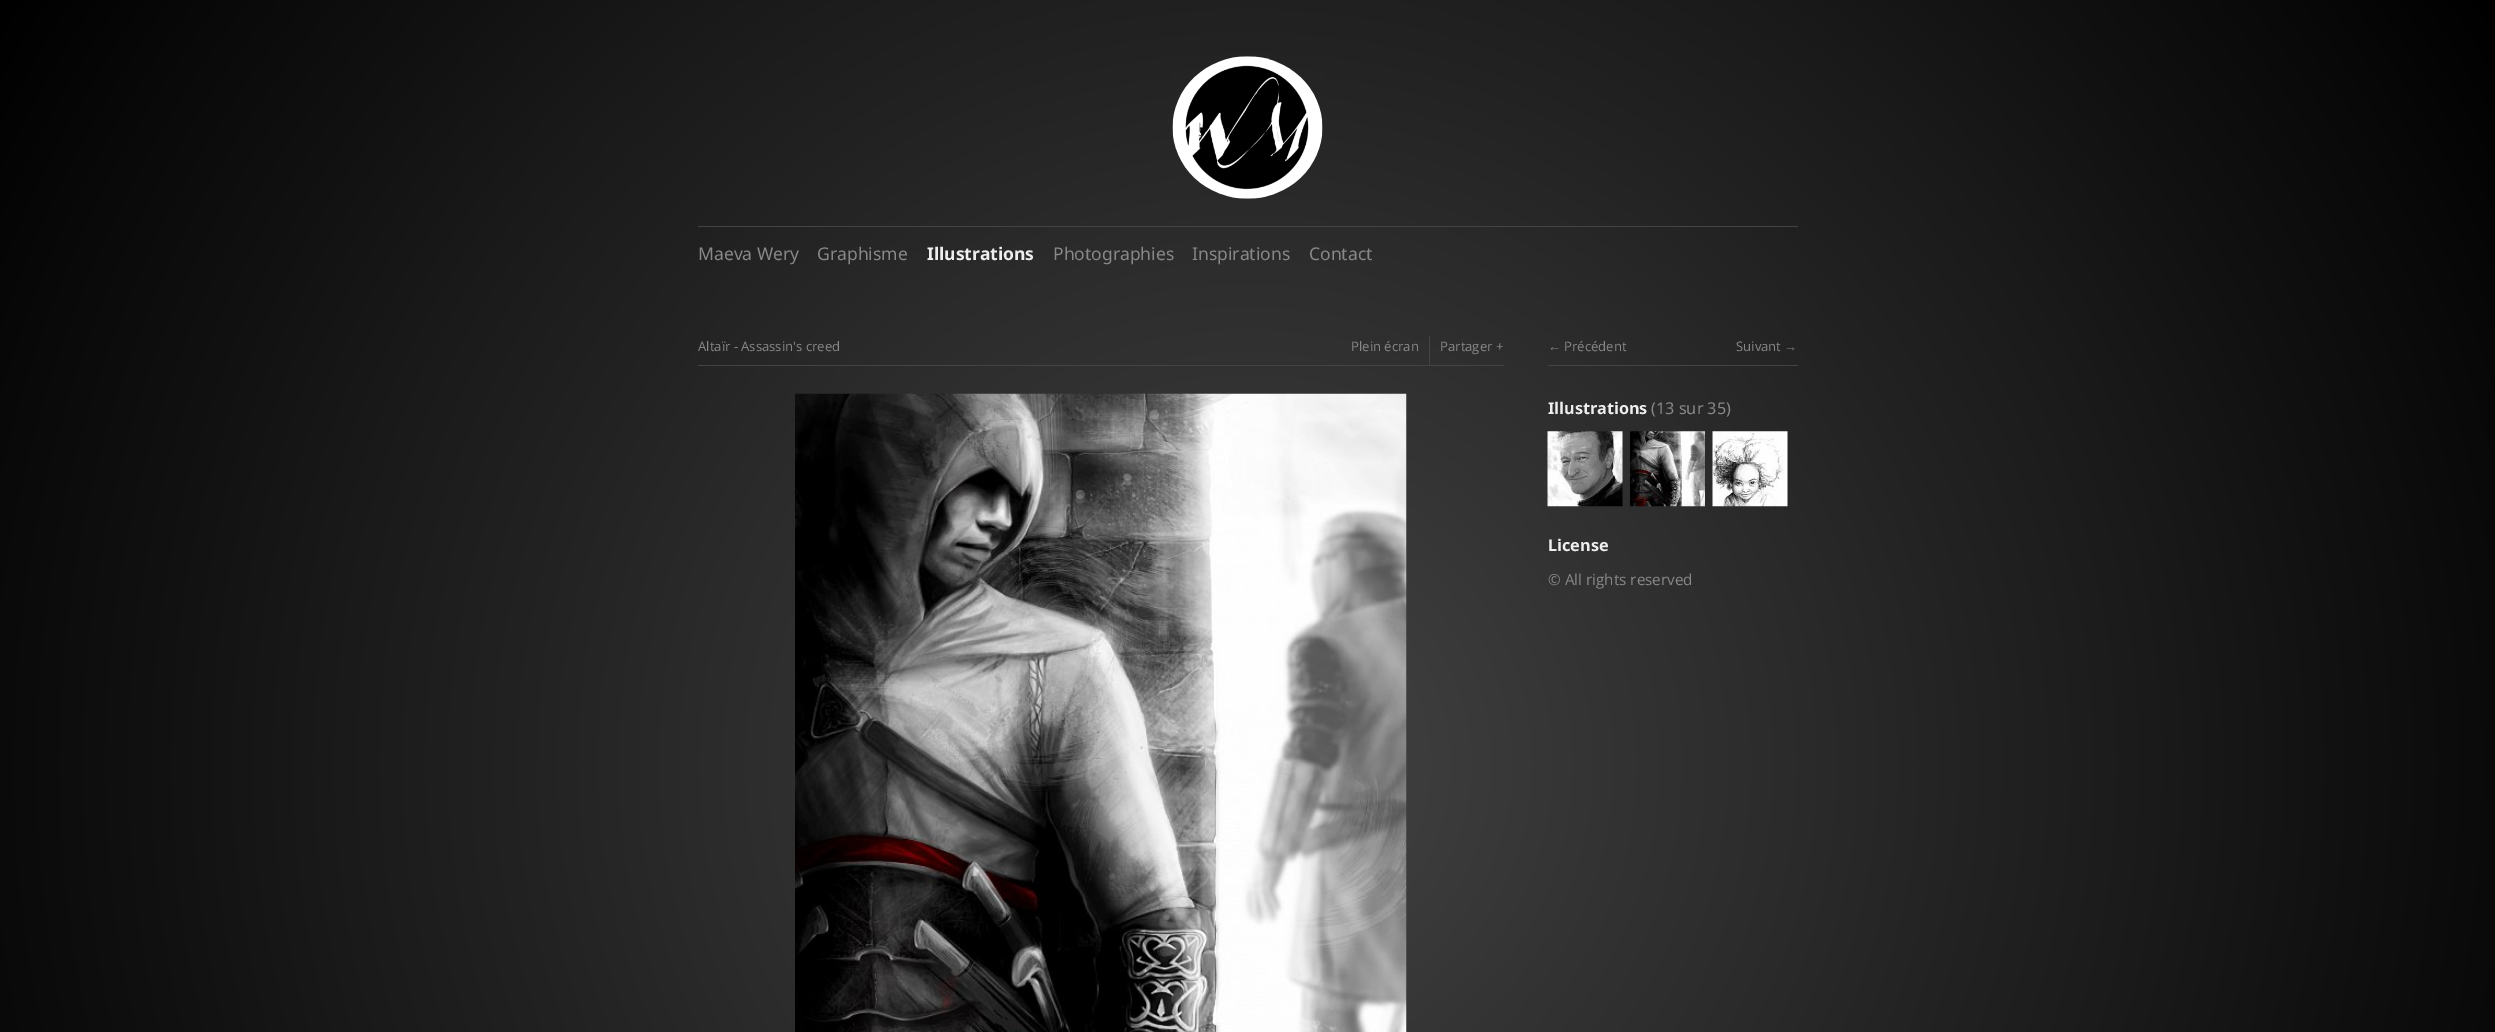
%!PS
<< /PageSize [2495 1032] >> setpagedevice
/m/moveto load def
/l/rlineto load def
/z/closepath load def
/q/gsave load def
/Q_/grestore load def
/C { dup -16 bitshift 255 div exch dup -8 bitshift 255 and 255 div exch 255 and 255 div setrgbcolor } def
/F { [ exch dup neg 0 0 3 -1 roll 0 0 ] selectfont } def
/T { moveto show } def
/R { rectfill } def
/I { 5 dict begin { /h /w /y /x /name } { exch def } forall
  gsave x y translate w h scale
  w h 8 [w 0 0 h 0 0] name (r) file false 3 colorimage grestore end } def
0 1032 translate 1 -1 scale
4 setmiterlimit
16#FFFFFF C
0 0 2495 1032 R
q 0 0 m 2495 0 l 0 1032 l -2495 0 l z clip newpath 1248 764 translate 1463 1463 scale
<< /ShadingType 3 /ColorSpace /DeviceRGB /Coords [0 0 0 0 0 1] /Extend [true true] /Function << /FunctionType 2 /Domain [0 1] /C0 [.267 .267 .267] /C1 [0 0 0] /N 1 >> >> shfill Q_
(1.rgb) 1172 56 151 143 I
16#444444 C
698 226 1100 1 R
/NotoSans-Regular 17.5 F
16#888888 C
(Maeva Wery) 698 260 T
(Graphisme) 817 260 T
/NotoSans-Bold 17.5 F
16#EEEEEE C
(Illustrations) 927 260 T
/NotoSans-Regular 17.5 F
16#888888 C
(Photographies) 1053 260 T
(Inspirations) 1192 260 T
(Contact) 1309 260 T
16#444444 C
698 365 806 1 R
/OpenSans-Regular 13.1 F
16#888888 C
(Altaïr - Assassin's creed) 698 351 T
(Plein écran) 1351 351 T
16#444444 C
1429 336 1 29 R
16#888888 C
(Partager +) 1440 351 T
(2.rgb) 795 393 612 639 I
16#444444 C
1548 365 250 1 R
/LiberationSans-Regular 13.1 F
16#888888 C
(←) 1548 351 T
/OpenSans-Regular 13.1 F
(Précédent) 1564 351 T
(Suivant) 1736 351 T
/LiberationSans-Regular 13.1 F
(→) 1784 351 T
/NotoSans-Bold 16.25 F
16#EEEEEE C
(Illustrations) 1548 414 T
/NotoSans-Regular 16.25 F
16#888888 C
(\(13 sur 35\)) 1651 414 T
(3.rgb) 1547 431 76 76 I
(4.rgb) 1630 431 75 76 I
(5.rgb) 1712 431 76 76 I
/NotoSans-Bold 16.25 F
16#EEEEEE C
(License) 1548 551 T
/OpenSans-Regular 15.25 F
16#888888 C
(© All rights reserved) 1548 585 T
showpage
